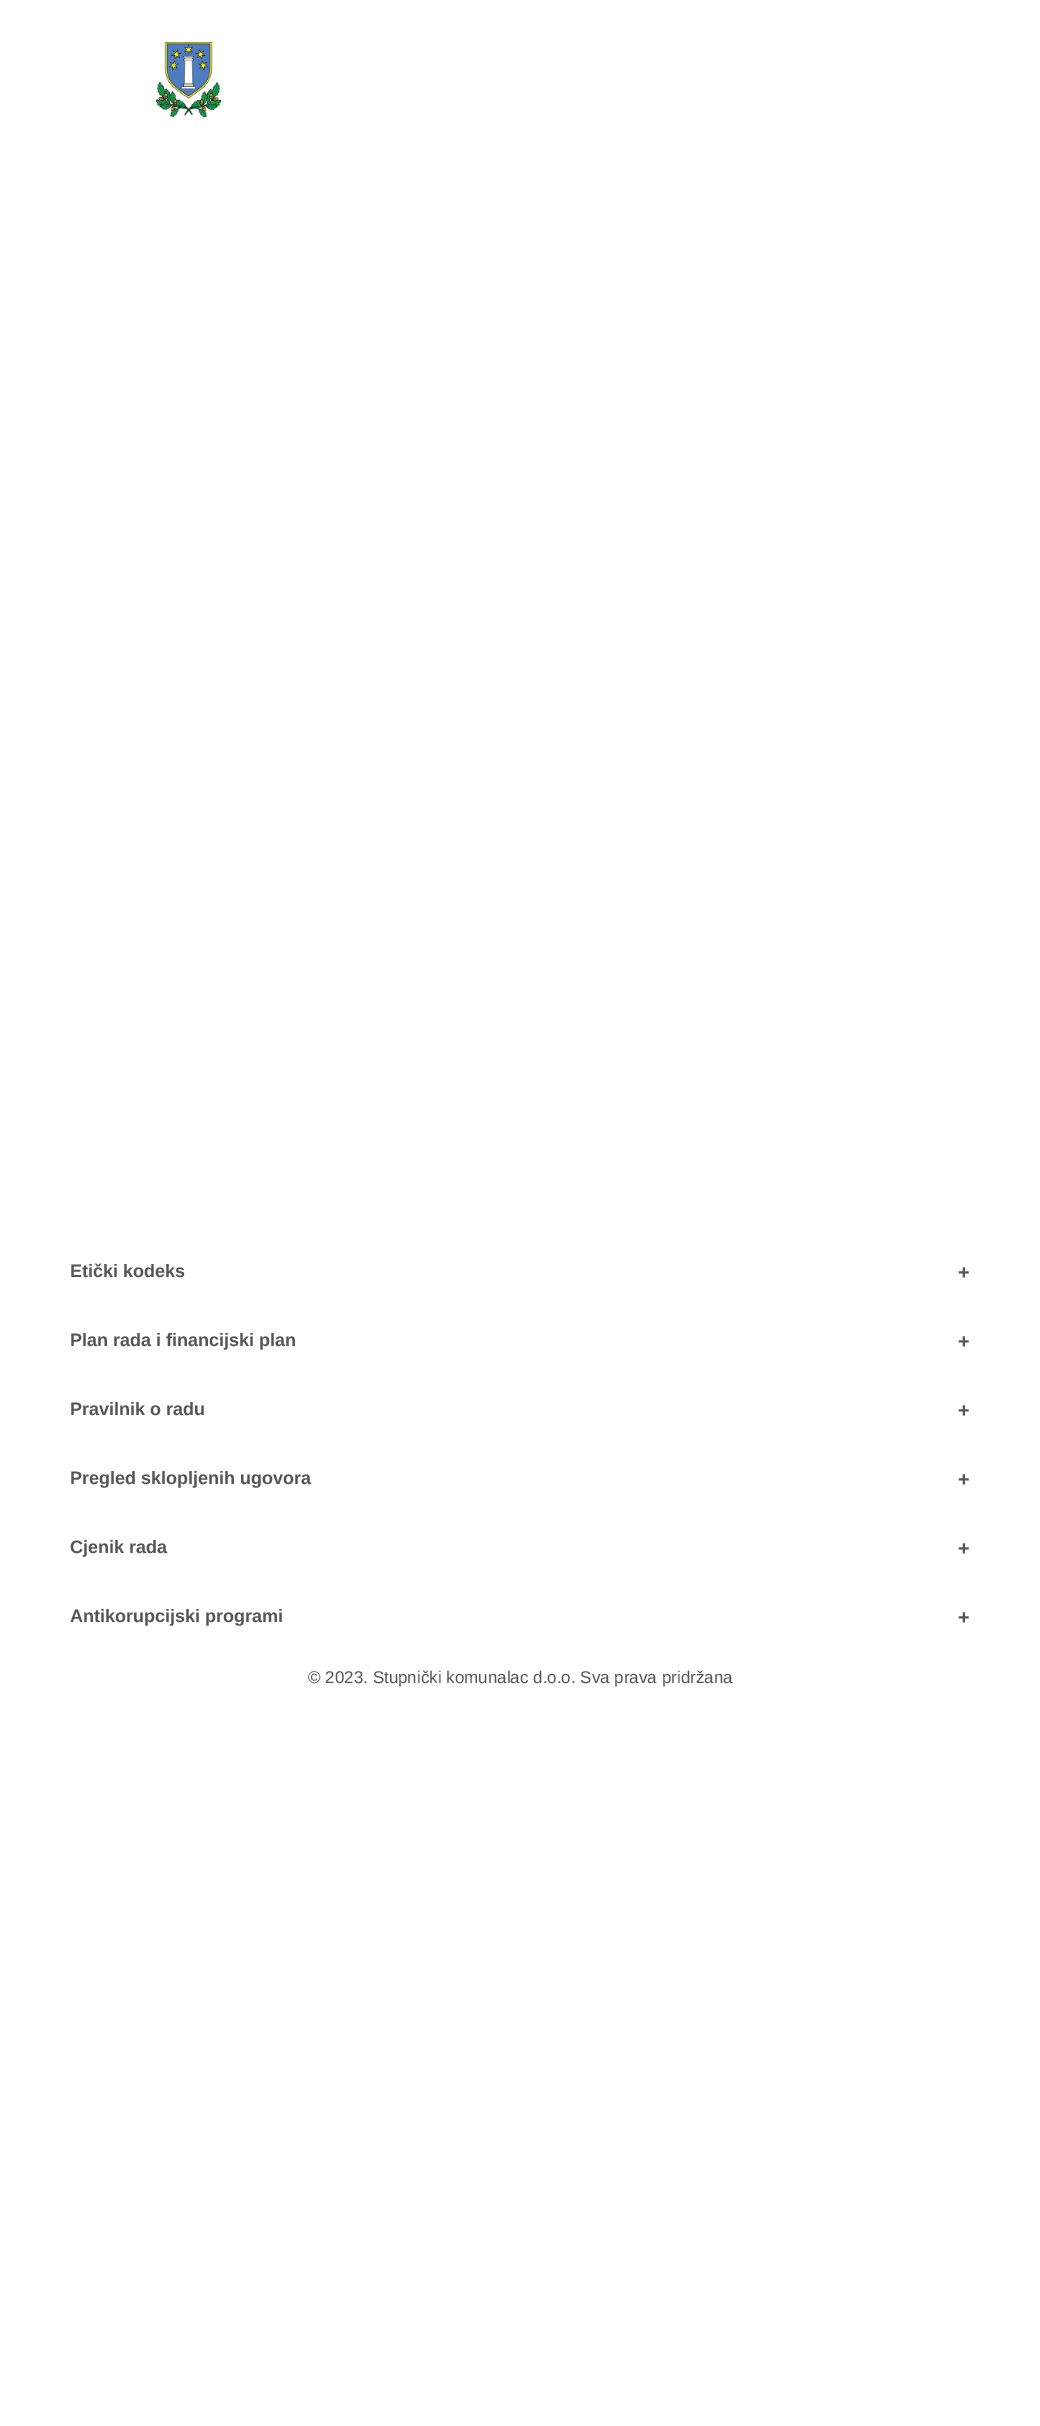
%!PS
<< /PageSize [1040 2426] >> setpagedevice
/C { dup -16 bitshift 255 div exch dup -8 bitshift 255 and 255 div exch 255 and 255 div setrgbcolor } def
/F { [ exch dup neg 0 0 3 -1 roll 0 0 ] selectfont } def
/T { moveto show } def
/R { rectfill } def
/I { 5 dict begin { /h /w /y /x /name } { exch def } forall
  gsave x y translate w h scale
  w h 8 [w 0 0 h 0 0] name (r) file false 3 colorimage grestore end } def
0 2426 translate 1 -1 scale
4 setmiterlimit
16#FFFFFF C
0 0 1040 2426 R
(1.rgb) 156 42 65 75 I
/LiberationSans-Bold 18 F
16#555555 C
(Etički kodeks) 70 1277 T
/LiberationSans-Bold 20 F
(+) 958 1279 T
/LiberationSans-Bold 18 F
(Plan rada i financijski plan) 70 1346 T
/LiberationSans-Bold 20 F
(+) 958 1348 T
/LiberationSans-Bold 18 F
(Pravilnik o radu) 70 1415 T
/LiberationSans-Bold 20 F
(+) 958 1417 T
/LiberationSans-Bold 18 F
(Pregled sklopljenih ugovora) 70 1484 T
/LiberationSans-Bold 20 F
(+) 958 1486 T
/LiberationSans-Bold 18 F
(Cjenik rada) 70 1553 T
/LiberationSans-Bold 20 F
(+) 958 1555 T
/LiberationSans-Bold 18 F
(Antikorupcijski programi) 70 1622 T
/LiberationSans-Bold 20 F
(+) 958 1624 T
/LiberationSans-Regular 17 F
(© 2023. Stupnički komunalac d.o.o. Sva prava pridržana) 308 1683 T
showpage
